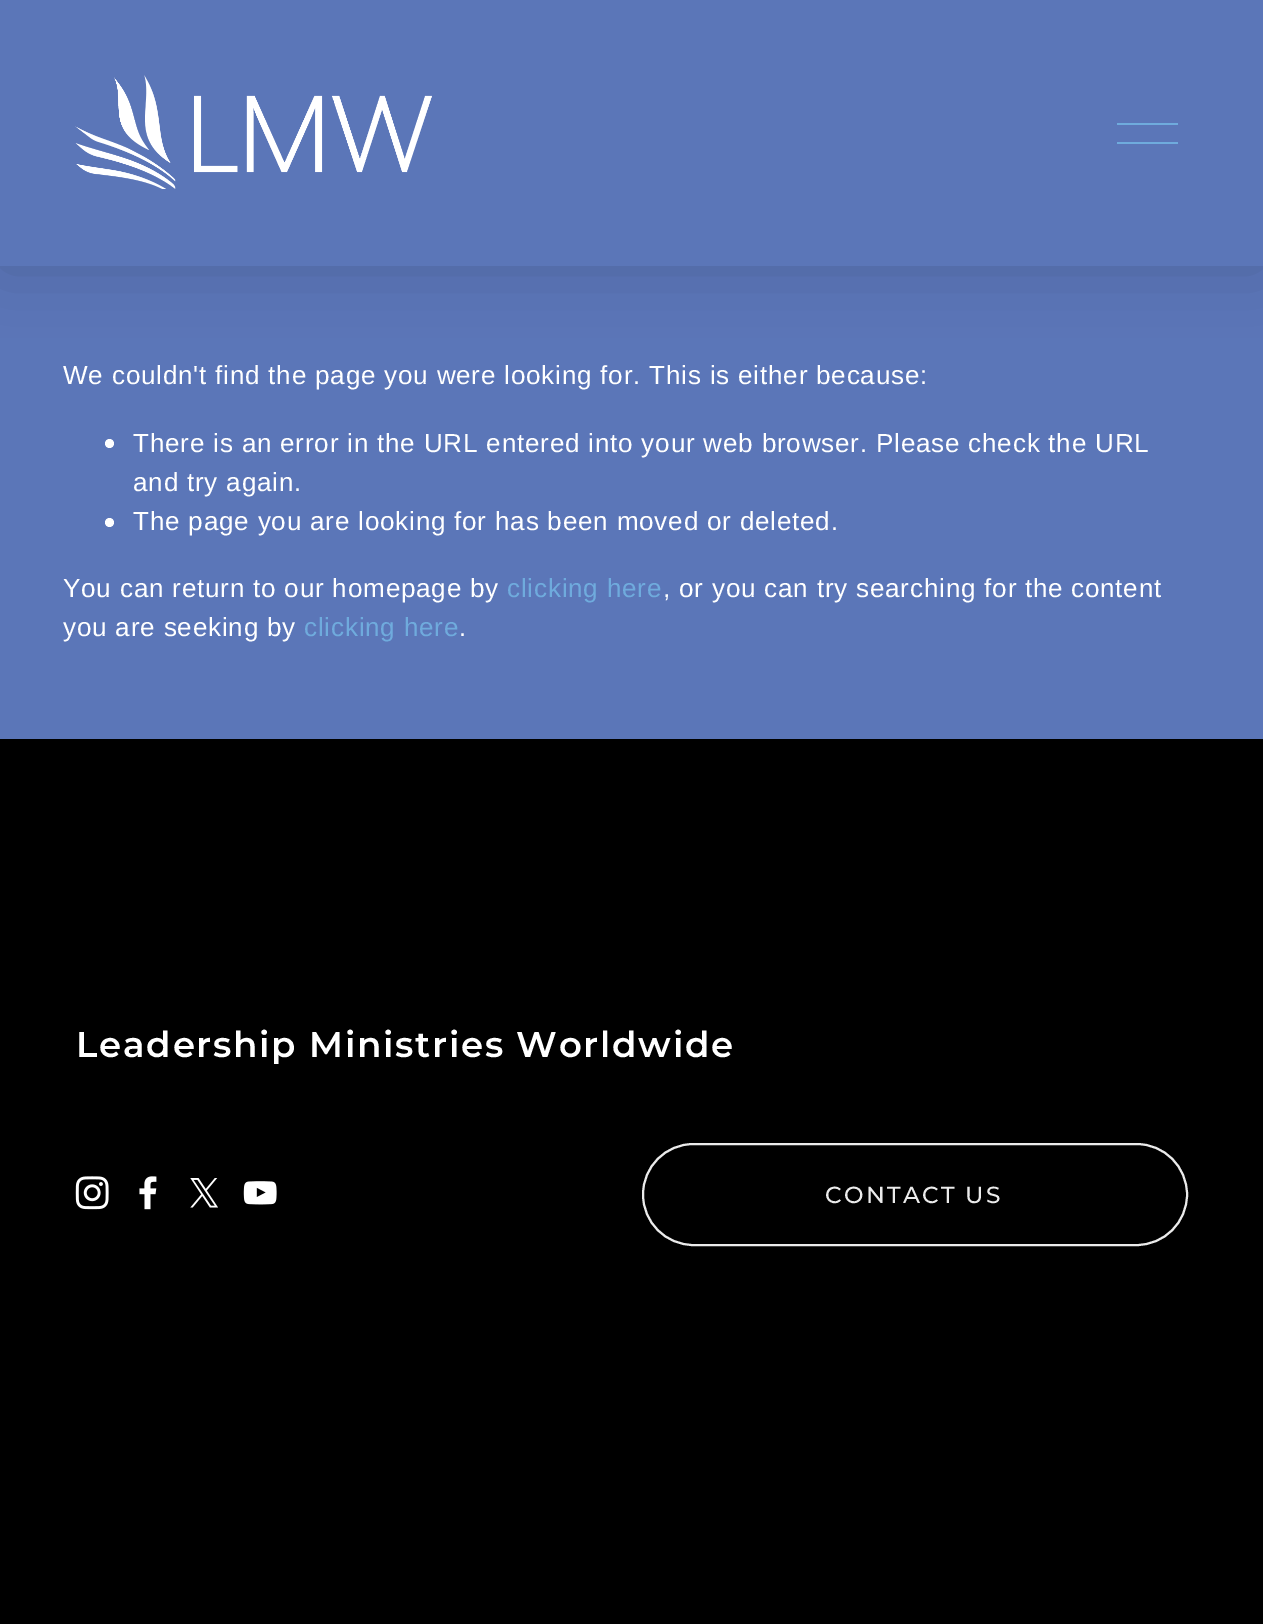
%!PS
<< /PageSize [1263 1624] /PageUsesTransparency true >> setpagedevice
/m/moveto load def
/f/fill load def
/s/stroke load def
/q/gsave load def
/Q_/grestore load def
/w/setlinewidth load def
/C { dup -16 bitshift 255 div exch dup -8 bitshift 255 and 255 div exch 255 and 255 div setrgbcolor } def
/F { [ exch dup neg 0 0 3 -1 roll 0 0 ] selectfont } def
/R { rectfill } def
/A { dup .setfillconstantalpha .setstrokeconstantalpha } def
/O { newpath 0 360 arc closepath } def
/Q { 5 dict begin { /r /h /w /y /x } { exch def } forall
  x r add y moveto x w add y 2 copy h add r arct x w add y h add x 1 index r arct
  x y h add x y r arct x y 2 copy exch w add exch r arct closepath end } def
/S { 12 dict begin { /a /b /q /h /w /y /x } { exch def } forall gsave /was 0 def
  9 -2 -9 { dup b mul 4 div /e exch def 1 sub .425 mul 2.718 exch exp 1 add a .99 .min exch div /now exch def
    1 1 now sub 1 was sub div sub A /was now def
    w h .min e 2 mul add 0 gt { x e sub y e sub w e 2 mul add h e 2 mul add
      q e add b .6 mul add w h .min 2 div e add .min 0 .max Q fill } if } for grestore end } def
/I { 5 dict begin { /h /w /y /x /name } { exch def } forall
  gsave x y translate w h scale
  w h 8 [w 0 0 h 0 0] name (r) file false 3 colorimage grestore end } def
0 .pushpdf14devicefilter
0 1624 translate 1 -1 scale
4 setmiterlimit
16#5B76B8 C
0 0 1263 1624 R
q
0 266 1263 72 rectclip
16#4D649C C
0 2 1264 266 0 34 1 S
Q_
(1.rgb) 75 75 357 114 I
16#6FABDD C
1117 123 61 2 R
1117 142 61 2 R
/LiberationSans-Regular 26.1 F
16#FFFFFF C
63 384 m .78 0 (We couldn't find the page you were looking for. This is either because:) ashow
109.5 443.5 4.5 O f
133 452 m .78 0 (There is an error in the URL entered into your web browser. Please check the URL) ashow
133 491 m .78 0 (and try again.) ashow
109.5 522.5 4.5 O f
133 530 m .78 0 (The page you are looking for has been moved or deleted.) ashow
63 597 m .78 0 (You can return to our homepage by) ashow
16#6FABDD C
507 597 m .78 0 (clicking here) ashow
16#FFFFFF C
663 597 m .78 0 (, or you can try searching for the) ashow
1071 597 m .78 0 (content) ashow
63 636 m .78 0 (you are seeking by) ashow
16#6FABDD C
304 636 m .78 0 (clicking here) ashow
16#FFFFFF C
459 636 m .78 0 (.) ashow
16#000000 C
0 739 1263 885 R
/Montserrat-SemiBold 35.6 F
16#FFFFFF C
76 1057 m 1.75 0 (Leadership Ministries Worldwide) ashow
(2.rgb) 75 1176 34 34 I
(3.rgb) 139 1176 18 34 I
(4.rgb) 190 1178 28 30 I
(5.rgb) 243 1181 34 24 I
16#EBEBEB C
2 w
643 1144 544 101 50.5 Q s
/Montserrat-Medium 23.25 F
825 1203 m 2.25 0 (CONTACT US) ashow
.poppdf14devicefilter showpage
